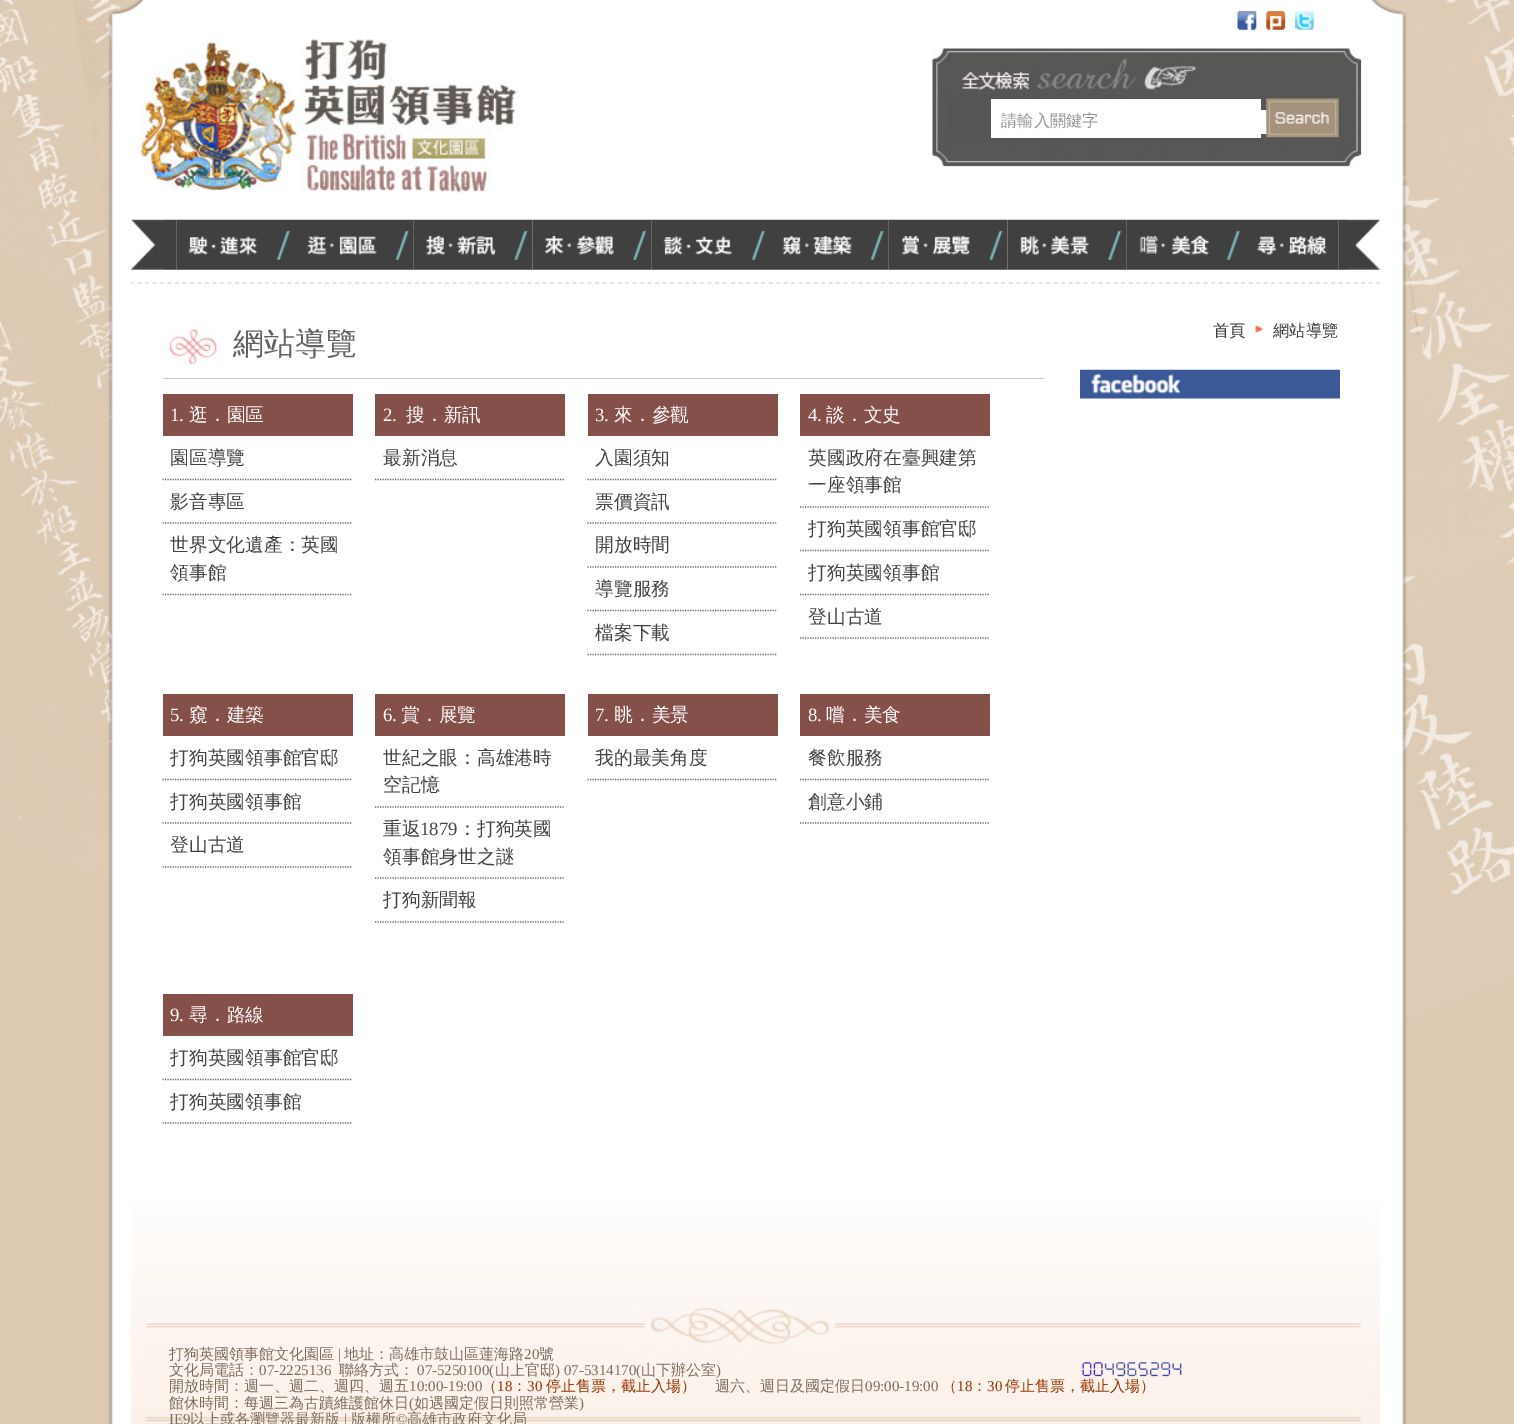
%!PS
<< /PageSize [1514 1424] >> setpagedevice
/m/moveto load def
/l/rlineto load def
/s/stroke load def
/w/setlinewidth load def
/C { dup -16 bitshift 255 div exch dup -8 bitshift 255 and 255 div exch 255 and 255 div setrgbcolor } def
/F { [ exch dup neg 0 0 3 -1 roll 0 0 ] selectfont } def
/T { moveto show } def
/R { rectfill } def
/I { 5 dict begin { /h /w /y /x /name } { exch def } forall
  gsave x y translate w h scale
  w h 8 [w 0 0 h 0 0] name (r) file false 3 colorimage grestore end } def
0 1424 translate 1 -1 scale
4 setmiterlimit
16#DCCAB2 C
0 0 1514 1424 R
(1.rgb) 0 0 1514 1146 I
(2.rgb) 108 0 1299 1424 I
(3.rgb) 1237 10 20 20 I
(4.rgb) 1266 10 20 20 I
(5.rgb) 1294 11 20 19 I
(6.rgb) 141 39 380 155 I
(7.rgb) 932 48 430 119 I
16#FFFFFF C
991 99 270 39 R
1261 110 6 24 R
/WenQuanYiZenHei-Medium 16.25 F
16#949494 C
(請輸入關鍵字) 1001 126 T
(8.rgb) 1266 98 73 40 I
(9.rgb) 131 219 46 51 I
(10.rgb) 176 219 119 51 I
(11.rgb) 295 219 119 51 I
(12.rgb) 413 219 120 51 I
(13.rgb) 532 219 120 51 I
(14.rgb) 651 219 119 51 I
(15.rgb) 770 219 119 51 I
(16.rgb) 888 219 120 51 I
(17.rgb) 1007 219 120 51 I
(18.rgb) 1126 219 119 51 I
(19.rgb) 1245 219 94 51 I
(20.rgb) 1338 219 43 51 I
(21.rgb) 131 279 1249 7 I
(22.rgb) 131 1203 1249 98 I
(23.rgb) 163 329 59 41 I
16#C6C6C6 C
163 378 881 1 R
/WenQuanYiZenHei-Medium 31 F
16#626262 C
(網站導覽) 233 354 T
16#854F4A C
163 394 190 42 R
/LiberationSerif-Regular 18.75 F
16#FFFFFF C
(1.) 170 421 T
/WenQuanYiZenHei-Medium 18.75 F
(逛．園區) 189 421 T
16#666666 C
1.2 w
[1.25 1.25] 0 setdash
162.5 479.5 m 190 0 l s
16#434343 C
(園區導覽) 170 464 T
16#666666 C
162.5 523 m 190 0 l s
16#434343 C
(影音專區) 170 508 T
16#666666 C
162.5 594.5 m 190 0 l s
16#434343 C
(世界文化遺產：英國) 170 551 T
(領事館) 170 579 T
16#854F4A C
375 394 190 42 R
/LiberationSerif-Regular 18.75 F
16#FFFFFF C
(2.) 383 421 T
/WenQuanYiZenHei-Medium 18.75 F
(搜．新訊) 406 421 T
16#666666 C
375 479.5 m 190 0 l s
16#434343 C
(最新消息) 383 464 T
16#854F4A C
588 394 190 42 R
/LiberationSerif-Regular 18.75 F
16#FFFFFF C
(3.) 595 421 T
/WenQuanYiZenHei-Medium 18.75 F
(來．參觀) 614 421 T
16#666666 C
587.5 479.5 m 190 0 l s
16#434343 C
(入園須知) 595 464 T
16#666666 C
587.5 523 m 190 0 l s
16#434343 C
(票價資訊) 595 508 T
16#666666 C
587.5 567 m 190 0 l s
16#434343 C
(開放時間) 595 551 T
16#666666 C
587.5 610.5 m 190 0 l s
16#434343 C
(導覽服務) 595 595 T
16#666666 C
587.5 654.5 m 190 0 l s
16#434343 C
(檔案下載) 595 639 T
16#854F4A C
800 394 190 42 R
/LiberationSerif-Regular 18.75 F
16#FFFFFF C
(4.) 808 421 T
/WenQuanYiZenHei-Medium 18.75 F
(談．文史) 826 421 T
16#666666 C
800 507 m 190 0 l s
16#434343 C
(英國政府在臺興建第) 808 464 T
(一座領事館) 808 491 T
16#666666 C
800 550.5 m 190 0 l s
16#434343 C
(打狗英國領事館官邸) 808 535 T
16#666666 C
800 594.5 m 190 0 l s
16#434343 C
(打狗英國領事館) 808 579 T
16#666666 C
800 638 m 190 0 l s
16#434343 C
(登山古道) 808 623 T
16#854F4A C
163 694 190 42 R
/LiberationSerif-Regular 18.75 F
16#FFFFFF C
(5.) 170 721 T
/WenQuanYiZenHei-Medium 18.75 F
(窺．建築) 189 721 T
16#666666 C
162.5 779.5 m 190 0 l s
16#434343 C
(打狗英國領事館官邸) 170 764 T
16#666666 C
162.5 823 m 190 0 l s
16#434343 C
(打狗英國領事館) 170 808 T
16#666666 C
162.5 867 m 190 0 l s
16#434343 C
(登山古道) 170 851 T
16#854F4A C
375 694 190 42 R
/LiberationSerif-Regular 18.75 F
16#FFFFFF C
(6.) 383 721 T
/WenQuanYiZenHei-Medium 18.75 F
(賞．展覽) 401 721 T
16#666666 C
375 807 m 190 0 l s
16#434343 C
(世紀之眼：高雄港時) 383 764 T
(空記憶) 383 791 T
16#666666 C
375 878 m 190 0 l s
16#434343 C
(重返) 383 835 T
/LiberationSerif-Regular 18.75 F
(1879) 420 835 T
/WenQuanYiZenHei-Medium 18.75 F
(：打狗英國) 458 835 T
(領事館身世之謎) 383 863 T
16#666666 C
375 922 m 190 0 l s
16#434343 C
(打狗新聞報) 383 906 T
16#854F4A C
588 694 190 42 R
/LiberationSerif-Regular 18.75 F
16#FFFFFF C
(7.) 595 721 T
/WenQuanYiZenHei-Medium 18.75 F
(眺．美景) 614 721 T
16#666666 C
587.5 779.5 m 190 0 l s
16#434343 C
(我的最美角度) 595 764 T
16#854F4A C
800 694 190 42 R
/LiberationSerif-Regular 18.75 F
16#FFFFFF C
(8.) 808 721 T
/WenQuanYiZenHei-Medium 18.75 F
(嚐．美食) 826 721 T
16#666666 C
800 779.5 m 190 0 l s
16#434343 C
(餐飲服務) 808 764 T
16#666666 C
800 823 m 190 0 l s
16#434343 C
(創意小鋪) 808 808 T
16#854F4A C
163 994 190 42 R
/LiberationSerif-Regular 18.75 F
16#FFFFFF C
(9.) 170 1021 T
/WenQuanYiZenHei-Medium 18.75 F
(尋．路線) 189 1021 T
16#666666 C
162.5 1079.5 m 190 0 l s
16#434343 C
(打狗英國領事館官邸) 170 1064 T
16#666666 C
162.5 1123 m 190 0 l s
16#434343 C
(打狗英國領事館) 170 1108 T
/WenQuanYiZenHei-Medium 16.25 F
16#3A3A3A C
(首頁) 1213 336 T
(24.rgb) 1255 325 9 8 I
(網站導覽) 1273 336 T
(25.rgb) 1080 369 260 30 I
(26.rgb) 131 1301 1250 123 I
/WenQuanYiZenHei-Medium 15 F
16#7E6D5D C
(打狗英國領事館文化園區) 169 1359 T
/LiberationSerif-Regular 15 F
(|) 338 1359 T
/WenQuanYiZenHei-Medium 15 F
(地址：高雄市鼓山區蓮海路) 344 1359 T
/LiberationSerif-Regular 15 F
(20) 524 1359 T
/WenQuanYiZenHei-Medium 15 F
(號) 539 1359 T
(文化局電話：) 169 1375 T
/LiberationSerif-Regular 15 F
(07-2225136) 259 1375 T
/WenQuanYiZenHei-Medium 15 F
(聯絡方式：) 339 1375 T
/LiberationSerif-Regular 15 F
(07-5250100\() 417 1375 T
/WenQuanYiZenHei-Medium 15 F
(山上官邸) 495 1375 T
/LiberationSerif-Regular 15 F
(\) 07-5314170\() 555 1375 T
/WenQuanYiZenHei-Medium 15 F
(山下辦公室) 641 1375 T
/LiberationSerif-Regular 15 F
(\)) 716 1375 T
/WenQuanYiZenHei-Medium 15 F
(開放時間：週一、週二、週四、週五) 169 1391 T
/LiberationSerif-Regular 15 F
(10:00-19:00) 409 1391 T
/WenQuanYiZenHei-Medium 15 F
16#993300 C
(（) 482 1391 T
/LiberationSerif-Regular 15 F
(18) 497 1391 T
/WenQuanYiZenHei-Medium 15 F
(：) 512 1391 T
/LiberationSerif-Regular 15 F
(30) 527 1391 T
/WenQuanYiZenHei-Medium 15 F
(停止售票，截止入場）) 546 1391 T
16#7E6D5D C
(週六、週日及國定假日) 715 1391 T
/LiberationSerif-Regular 15 F
(09:00-19:00) 865 1391 T
/WenQuanYiZenHei-Medium 15 F
16#993300 C
(（) 942 1391 T
/LiberationSerif-Regular 15 F
(18) 957 1391 T
/WenQuanYiZenHei-Medium 15 F
(：) 972 1391 T
/LiberationSerif-Regular 15 F
(30) 987 1391 T
/WenQuanYiZenHei-Medium 15 F
(停止售票，截止入場）) 1005 1391 T
16#7E6D5D C
(館休時間：每週三為古蹟維護館休日) 169 1408 T
/LiberationSerif-Regular 15 F
(\() 409 1408 T
/WenQuanYiZenHei-Medium 15 F
(如遇國定假日則照常營業) 414 1408 T
/LiberationSerif-Regular 15 F
(\)) 579 1408 T
(IE9) 169 1424 T
/WenQuanYiZenHei-Medium 15 F
(以上或各瀏覽器最新版) 190 1424 T
/LiberationSerif-Regular 15 F
(|) 344 1424 T
/WenQuanYiZenHei-Medium 15 F
(版權所) 351 1424 T
/LiberationSerif-Regular 15 F
(©) 396 1424 T
/WenQuanYiZenHei-Medium 15 F
(高雄市政府文化局) 407 1424 T
(27.rgb) 1082 1362 10 15 I
(28.rgb) 1093 1362 10 15 I
(29.rgb) 1104 1363 10 12 I
(30.rgb) 1116 1362 10 15 I
(31.rgb) 1127 1362 10 15 I
(32.rgb) 1138 1362 10 15 I
(33.rgb) 1149 1362 10 15 I
(30.rgb) 1161 1362 10 15 I
(34.rgb) 1172 1363 10 12 I
showpage
